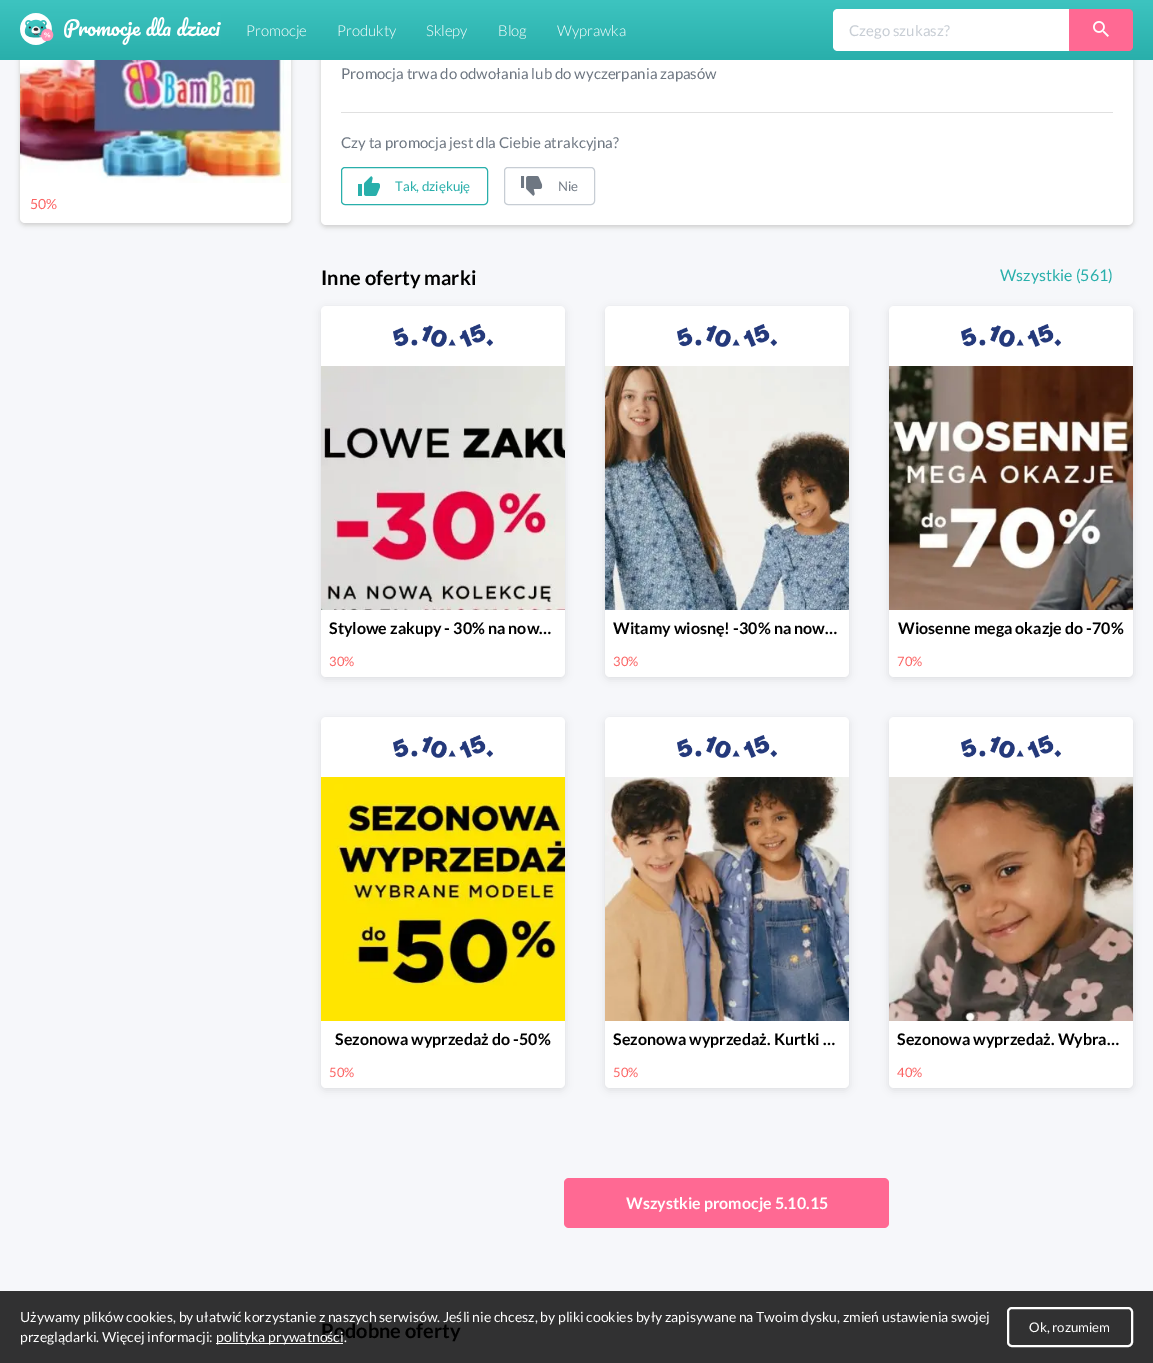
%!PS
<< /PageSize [1153 1363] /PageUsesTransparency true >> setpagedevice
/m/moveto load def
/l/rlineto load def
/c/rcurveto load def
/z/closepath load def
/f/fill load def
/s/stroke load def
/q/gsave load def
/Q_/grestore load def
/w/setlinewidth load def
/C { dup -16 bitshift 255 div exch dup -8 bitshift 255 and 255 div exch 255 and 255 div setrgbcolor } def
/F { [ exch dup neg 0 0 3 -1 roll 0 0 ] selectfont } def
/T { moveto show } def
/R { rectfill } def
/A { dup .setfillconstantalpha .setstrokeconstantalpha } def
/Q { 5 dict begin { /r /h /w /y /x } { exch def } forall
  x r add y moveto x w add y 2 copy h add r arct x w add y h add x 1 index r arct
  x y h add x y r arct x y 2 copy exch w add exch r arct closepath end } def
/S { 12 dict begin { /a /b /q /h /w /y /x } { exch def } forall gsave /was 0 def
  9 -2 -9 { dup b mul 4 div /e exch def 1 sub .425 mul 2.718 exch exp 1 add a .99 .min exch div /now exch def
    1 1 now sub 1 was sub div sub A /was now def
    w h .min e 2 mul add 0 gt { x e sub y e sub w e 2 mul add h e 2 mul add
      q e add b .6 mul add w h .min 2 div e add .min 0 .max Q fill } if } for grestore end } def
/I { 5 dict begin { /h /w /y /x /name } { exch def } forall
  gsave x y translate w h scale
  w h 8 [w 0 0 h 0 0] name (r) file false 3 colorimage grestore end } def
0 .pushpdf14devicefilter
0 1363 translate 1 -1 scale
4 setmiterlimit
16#F6F7FA C
0 0 1153 1363 R
16#CCCCCC C
20 -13 271 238 5 2.5 1 S
16#FFFFFF C
20 -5 271 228 5 Q f
16#CCCCCC C
321 -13 812 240 5 2.5 1 S
16#FFFFFF C
321 -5 812 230 5 Q f
q 0 0 m 1153 0 l 0 60 l -1153 0 l z clip newpath
<< /ShadingType 2 /ColorSpace /DeviceRGB /Coords [577 0 577 60] /Extend [true true] /Function << /FunctionType 2 /Domain [0 1] /C0 [.239 .769 .753] /C1 [.161 .686 .671] /N 1 >> >> shfill Q_
(1.rgb) 20 13 201 32 I
/Lato-Light 15 F
(Promocje) 246 36 T
(Produkty) 337 36 T
(Sklepy) 426 36 T
(Blog) 498 36 T
(Wyprawka) 557 36 T
838 9 m 231 0 l 0 42 l -231 0 l -3 0 -5 -2 -5 -5 c 0 -32 l 0 -3 2 -5 5 -5 c z f
/Lato-Regular 15 F
16#C7CDD4 C
(Czego szukasz?) 849 36 T
16#FF6993 C
1069 9 m 59 0 l 3 0 5 2 5 5 c 0 32 l 0 3 -2 5 -5 5 c -59 0 l z f
(2.rgb) 1093 21 16 16 I
16#313132 C
0 1291 1153 72 R
(3.rgb) 20 60 271 123 I
/Lato-Regular 14 F
16#FB6464 C
(50%) 30 209 T
/Lato-Regular 15 F
16#6E7782 C
(Promocja trwa do odwołania lub do wyczerpania zapasów) 341 79 T
16#E0E0E0 C
341 112 772 1 R
16#6E7782 C
(Czy ta promocja jest dla Ciebie atrakcyjna?) 341 148 T
16#29AFAB C
341.5 167.5 146 37 3.5 Q s
(4.rgb) 358 176 22 20 I
/Lato-Regular 13.25 F
(Tak, dziękuję) 395 191 T
16#C7CDD4 C
504.5 167.5 90 37 3.5 Q s
(5.rgb) 521 176 22 20 I
16#6E7782 C
(Nie) 558 191 T
/Lato-Bold 20 F
16#000000 C
(Inne oferty marki) 321 285 T
/Lato-Regular 16 F
16#29AFAB C
(Wszystkie \(561\)) 1000 281 T
16#000000 C
321 308 244 371 5 4 .1 S
16#FFFFFF C
321 306 244 371 5 Q f
(6.rgb) 393 324 100 23 I
(7.rgb) 321 366 244 244 I
/Lato-Bold 16 F
16#000000 C
(Stylowe zakupy - 30% na now…) 329 634 T
/Lato-Regular 13 F
16#FB6464 C
(30%) 329 666 T
16#000000 C
605 308 244 371 5 4 .1 S
16#FFFFFF C
605 306 244 371 5 Q f
(8.rgb) 677 324 100 23 I
(9.rgb) 605 366 244 244 I
/Lato-Bold 16 F
16#000000 C
(Witamy wiosnę! -30% na now…) 613 634 T
/Lato-Regular 13 F
16#FB6464 C
(30%) 613 666 T
16#000000 C
889 308 244 371 5 4 .1 S
16#FFFFFF C
889 306 244 371 5 Q f
(10.rgb) 961 324 100 23 I
(11.rgb) 889 366 244 244 I
/Lato-Bold 16 F
16#000000 C
(Wiosenne mega okazje do -70%) 898 634 T
/Lato-Regular 13 F
16#FB6464 C
(70%) 897 666 T
16#000000 C
321 719 244 371 5 4 .1 S
16#FFFFFF C
321 717 244 371 5 Q f
(6.rgb) 393 735 100 23 I
(12.rgb) 321 777 244 244 I
/Lato-Bold 16 F
16#000000 C
(Sezonowa wyprzedaż do -50%) 335 1045 T
/Lato-Regular 13 F
16#FB6464 C
(50%) 329 1077 T
16#000000 C
605 719 244 371 5 4 .1 S
16#FFFFFF C
605 717 244 371 5 Q f
(8.rgb) 677 735 100 23 I
(13.rgb) 605 777 244 244 I
/Lato-Bold 16 F
16#000000 C
(Sezonowa wyprzedaż. Kurtki …) 613 1045 T
/Lato-Regular 13 F
16#FB6464 C
(50%) 613 1077 T
16#000000 C
889 719 244 371 5 4 .1 S
16#FFFFFF C
889 717 244 371 5 Q f
(10.rgb) 961 735 100 23 I
(14.rgb) 889 777 244 244 I
/Lato-Bold 16 F
16#000000 C
(Sezonowa wyprzedaż. Wybra…) 897 1045 T
/Lato-Regular 13 F
16#FB6464 C
(40%) 897 1077 T
16#FF6993 C
564 1178 325 50 5 Q f
/Lato-Bold 16 F
16#FFFFFF C
(Wszystkie promocje 5.10.15) 626 1209 T
/Lato-Bold 20 F
16#000000 C
(Podobne oferty) 321 1338 T
/Lato-Regular 14 F
16#FFFFFF C
(Używamy plików cookies, by ułatwić korzystanie z naszych serwisów. Jeśli nie chcesz, by pliki cookies były zapisywane na Twoim dysku, zmień ustawienia swojej) 20 1322 T
(przeglądarki. Więcej informacji:) 20 1342 T
216 1343 127 1 R
(polityka prywatności.) 216 1342 T
2 w
1008 1308 124 38 4 Q s
/Lato-Regular 13.25 F
(Ok, rozumiem) 1029 1332 T
.poppdf14devicefilter showpage
